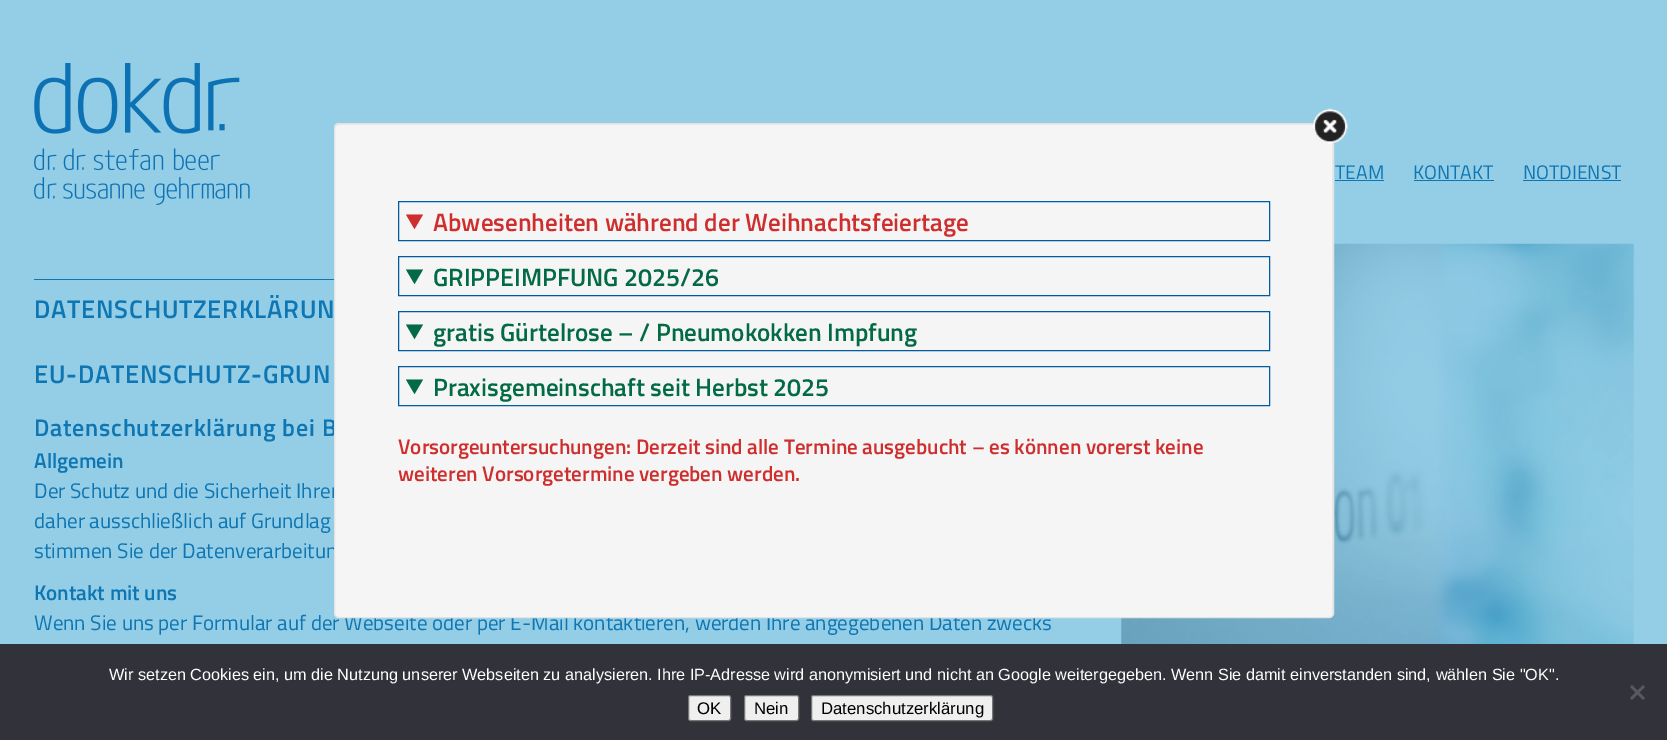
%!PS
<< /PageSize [1667 740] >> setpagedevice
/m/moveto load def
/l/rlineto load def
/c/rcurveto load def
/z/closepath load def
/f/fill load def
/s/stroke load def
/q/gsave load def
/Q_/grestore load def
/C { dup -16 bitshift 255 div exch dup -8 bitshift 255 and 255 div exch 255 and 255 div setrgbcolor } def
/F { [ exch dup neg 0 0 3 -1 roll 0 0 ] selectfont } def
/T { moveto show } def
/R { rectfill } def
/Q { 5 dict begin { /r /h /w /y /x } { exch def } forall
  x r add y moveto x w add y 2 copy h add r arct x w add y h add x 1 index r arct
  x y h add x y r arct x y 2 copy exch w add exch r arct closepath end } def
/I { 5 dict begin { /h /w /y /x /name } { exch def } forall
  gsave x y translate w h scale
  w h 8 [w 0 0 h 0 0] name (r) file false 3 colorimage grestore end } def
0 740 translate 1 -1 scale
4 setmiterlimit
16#94CDE6 C
0 0 1667 740 R
(1.rgb) 34 63 216 142 I
/TitilliumWeb-Regular 19.5 F
16#0D76B3 C
(TEAM) 1335 179 T
1335 180 49 1 R
(KONTAKT) 1413 179 T
1414 180 80 1 R
(NOTDIENST) 1523 179 T
1523 180 98 1 R
/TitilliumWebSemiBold-SemiBold 24 F
34 436 m .75 0 (Datenschutzerklärung bei B) ashow
/TitilliumWeb-Regular 21 F
(Der Schutz und die Sicherheit Ihrer) 34 498 T
(stimmen Sie der Datenverarbeitun) 34 558 T
(Wenn Sie uns per Formular auf der Webseite oder per E-Mail kontaktieren, werden Ihre angegebenen Daten zwecks) 34 630 T
(3.rgb) 1121 243 513 401 I
16#F5F5F5 C
334 123 1000 495 5 Q f
16#E9E9E9 C
339 125 m 990 0 l 2 0 3 2 3 4 c 0 486 l 1 -1 1 -2 1 -3 c 0 -484 l 0 -2 -2 -4 -4 -4 c -990 0 l -2 0 -4 2 -4 4 c 0 1 l 0 -2 2 -4 4 -4 c z f
16#E3E3E3 C
334.5 123.5 999 494 4.5 Q s
(2.rgb) 1312 108 36 36 I
16#005BA0 C
398.5 201.5 871 39 rectstroke
16#CF2E2E C
406 214.5 m 17 0 l -8.5 14.5 l z f
/TitilliumWebSemiBold-SemiBold 25 F
(Abwesenheiten während der Weihnachtsfeiertage) 433 231 T
16#005BA0 C
398.5 256.5 871 39 rectstroke
16#026A44 C
406 269.5 m 17 0 l -8.5 14.5 l z f
(GRIPPEIMPFUNG 2025/26) 433 286 T
16#005BA0 C
398.5 311.5 871 39 rectstroke
16#026A44 C
406 324.5 m 17 0 l -8.5 14.5 l z f
(gratis Gürtelrose – / Pneumokokken Impfung) 433 341 T
16#005BA0 C
398.5 366.5 871 39 rectstroke
16#026A44 C
406 379.5 m 17 0 l -8.5 14.5 l z f
(Praxisgemeinschaft seit Herbst 2025) 433 396 T
/TitilliumWebSemiBold-SemiBold 21 F
16#CF2E2E C
(Vorsorgeuntersuchungen: Derzeit sind alle Termine ausgebucht – es können vorerst keine) 398 454 T
(weiteren Vorsorgetermine vergeben werden.) 398 481 T
16#0D76B3 C
34 279 300 1 R
/TitilliumWebSemiBold-SemiBold 25.5 F
34 318 m .75 0 (DATENSCHUTZERKLÄRUN) ashow
34 383 m .75 0 (EU-DATENSCHUTZ-GRUN) ashow
/TitilliumWebSemiBold-SemiBold 21 F
(Allgemein) 34 468 T
/TitilliumWeb-Regular 21 F
(daher ausschließlich auf Grundlag) 34 528 T
/TitilliumWebSemiBold-SemiBold 21 F
(Kontakt mit uns) 34 600 T
16#32323A C
0 644 1667 96 R
/LiberationSans-Regular 16.25 F
16#FFFFFF C
(Wir setzen Cookies ein, um die Nutzung unserer Webseiten zu analysieren. Ihre IP-Adresse wird anonymisiert und nicht an Google weitergegeben. Wenn Sie damit einverstanden sind, wählen Sie "OK".) 109 680 T
16#59595D C
1643 685 m 2 2 l -13 13 l -2 -2 l z f
1630 687 m 2 -2 l 13 13 l -2 2 l z f
16#EFEFEF C
688.5 695.5 42 25 2 Q q f Q_
16#767676 C
s
/LiberationSans-Regular 16.75 F
16#000000 C
(OK) 697 714 T
16#EFEFEF C
744.5 695.5 54 25 2 Q q f Q_
16#767676 C
s
16#000000 C
(Nein) 754 714 T
16#EFEFEF C
811.5 695.5 181 25 2 Q q f Q_
16#767676 C
s
16#000000 C
(Datenschutzerklärung) 821 714 T
showpage
